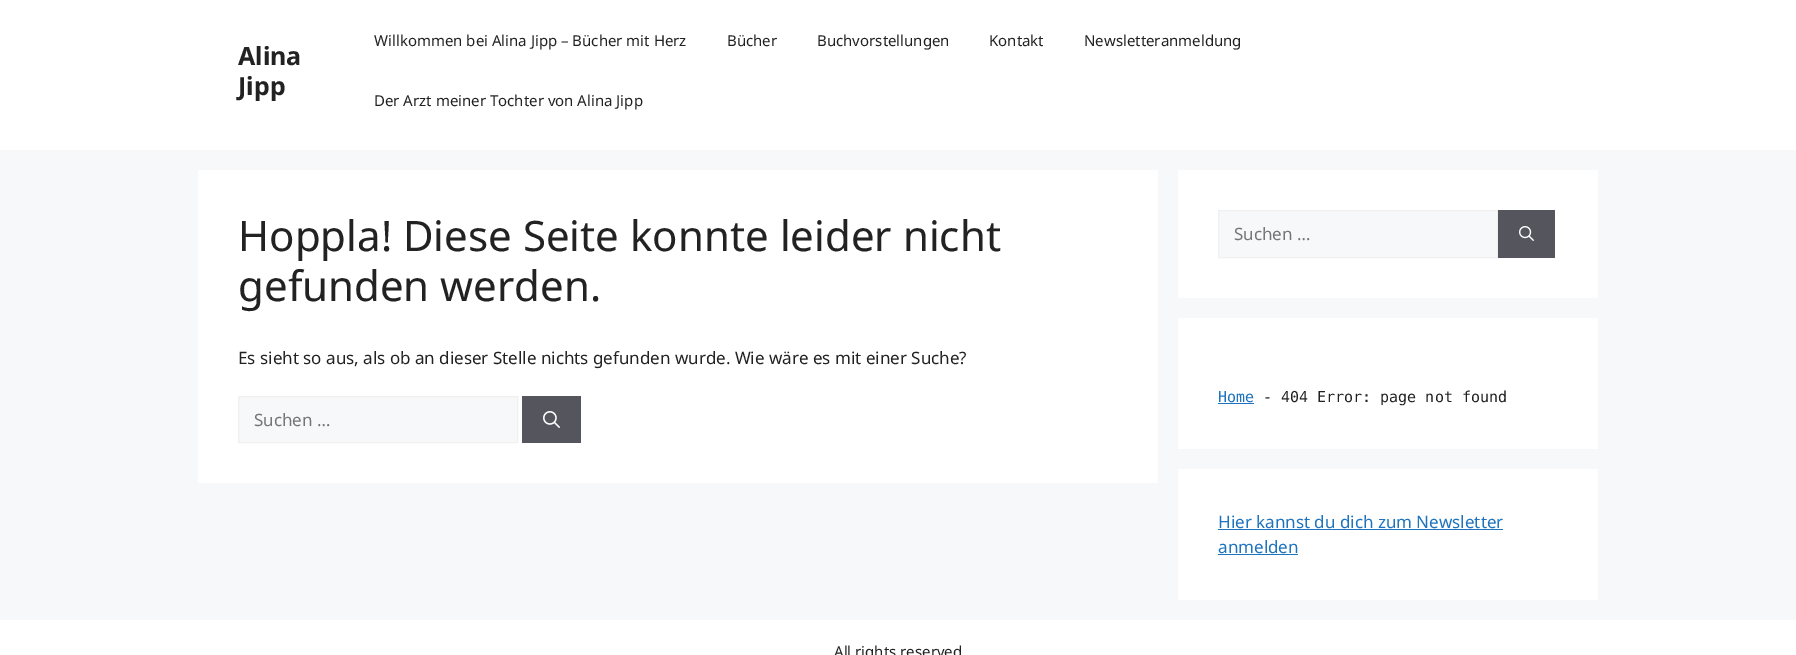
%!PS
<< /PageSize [1796 655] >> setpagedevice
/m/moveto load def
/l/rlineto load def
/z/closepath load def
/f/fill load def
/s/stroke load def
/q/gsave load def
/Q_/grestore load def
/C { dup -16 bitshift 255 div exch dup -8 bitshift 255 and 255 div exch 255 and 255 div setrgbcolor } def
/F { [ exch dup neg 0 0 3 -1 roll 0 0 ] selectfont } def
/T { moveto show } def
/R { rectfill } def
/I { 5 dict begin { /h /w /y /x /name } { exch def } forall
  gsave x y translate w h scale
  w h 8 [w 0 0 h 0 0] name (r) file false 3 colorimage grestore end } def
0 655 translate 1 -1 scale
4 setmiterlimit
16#F7F8F9 C
0 0 1796 655 R
16#FFFFFF C
0 0 1796 150 R
/NotoSans-Bold 25 F
16#222222 C
(Alina) 238 65 T
(Jipp) 238 95 T
/NotoSans-Regular 15 F
(Willkommen bei Alina Jipp – Bücher mit Herz) 374 46 T
(Bücher) 727 46 T
(Buchvorstellungen) 817 46 T
(Kontakt) 989 46 T
(Newsletteranmeldung) 1084 46 T
(Der Arzt meiner Tochter von Alina Jipp) 374 106 T
16#FFFFFF C
198 170 960 313 R
/NotoSans-Regular 42 F
16#222222 C
(Hoppla! Diese Seite konnte leider nicht) 238 251 T
(gefunden werden.) 238 301 T
/NotoSans-Regular 17 F
(Es sieht so aus, als ob an dieser Stelle nichts gefunden wurde. Wie wäre es mit einer Suche?) 238 364 T
16#F7F8F9 C
238.5 396.5 m 279 0 l 0 46 l -279 0 l z q f Q_
16#F0F0F0 C
s
16#757575 C
(Suchen …) 254 426 T
16#55555E C
522 396 59 47 R
(1.rgb) 543 411 17 17 I
16#FFFFFF C
1178 170 420 128 R
16#F7F8F9 C
1218.5 210.5 m 279 0 l 0 47 l -279 0 l z q f Q_
16#F0F0F0 C
s
16#757575 C
(Suchen …) 1234 240 T
16#55555E C
1498 210 57 48 R
(2.rgb) 1519 226 15 15 I
16#FFFFFF C
1178 318 420 131 R
/DejaVuSansMono-Regular 15 F
16#1E73BE C
(Home) 1218 402 T
1218 403 36 1 R
16#222222 C
(- 404 Error: page not found) 1263 402 T
16#FFFFFF C
1178 469 420 131 R
/NotoSans-Regular 17 F
16#1E73BE C
(Hier kannst du dich zum Newsletter) 1218 528 T
1218 529 285 1 R
(anmelden) 1218 553 T
1218 554 80 1 R
16#FFFFFF C
0 620 1796 35 R
/NotoSans-Regular 15 F
16#222222 C
(All rights reserved) 834 657 T
showpage
